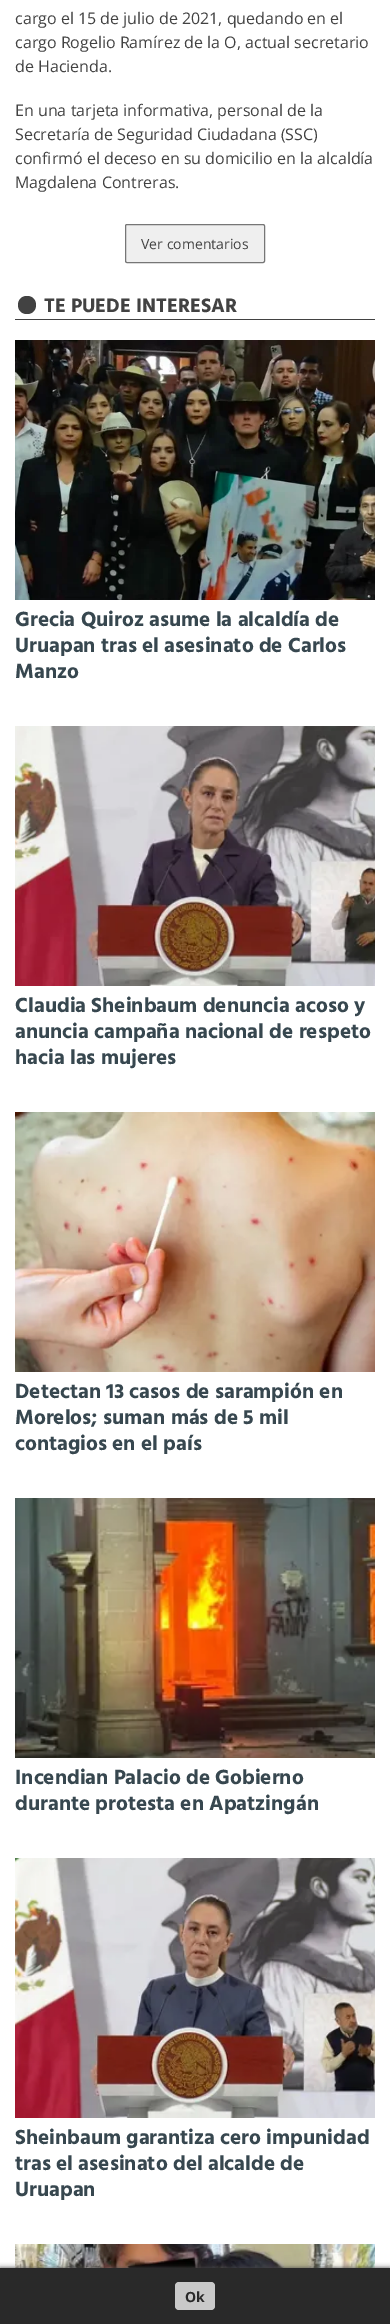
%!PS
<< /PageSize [390 2324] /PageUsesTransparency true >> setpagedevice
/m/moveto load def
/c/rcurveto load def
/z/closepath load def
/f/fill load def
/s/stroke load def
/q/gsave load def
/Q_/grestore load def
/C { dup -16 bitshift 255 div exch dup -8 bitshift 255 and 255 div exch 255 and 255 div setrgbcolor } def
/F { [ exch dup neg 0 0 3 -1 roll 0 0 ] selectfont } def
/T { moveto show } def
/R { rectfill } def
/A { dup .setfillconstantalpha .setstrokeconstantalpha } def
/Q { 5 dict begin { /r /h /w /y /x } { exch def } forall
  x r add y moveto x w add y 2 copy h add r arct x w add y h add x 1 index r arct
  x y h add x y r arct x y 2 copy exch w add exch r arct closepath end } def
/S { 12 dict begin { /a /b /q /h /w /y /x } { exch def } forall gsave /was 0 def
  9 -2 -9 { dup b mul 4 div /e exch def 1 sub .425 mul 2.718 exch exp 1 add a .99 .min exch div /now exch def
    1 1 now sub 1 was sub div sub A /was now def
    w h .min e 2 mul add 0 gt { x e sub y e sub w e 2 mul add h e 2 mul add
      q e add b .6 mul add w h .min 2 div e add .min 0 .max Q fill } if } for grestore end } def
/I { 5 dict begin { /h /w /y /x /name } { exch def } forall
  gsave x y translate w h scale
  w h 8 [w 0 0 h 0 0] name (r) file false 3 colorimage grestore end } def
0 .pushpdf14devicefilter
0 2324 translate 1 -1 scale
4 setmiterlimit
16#FFFFFF C
0 0 390 2324 R
/OpenSans-Regular 16 F
16#424242 C
(cargo el 15 de julio de 2021, quedando en el) 15 24 T
(cargo Rogelio Ramírez de la O, actual secretario) 15 48 T
(de Hacienda.) 15 72 T
(En una tarjeta informativa, personal de la) 15 116 T
(Secretaría de Seguridad Ciudadana \(SSC\)) 15 140 T
(confirmó el deceso en su domicilio en la alcaldía) 15 164 T
(Magdalena Contreras.) 15 188 T
16#EFEFEF C
125.5 224.5 139 38 1.5 Q q f Q_
16#767676 C
s
/OpenSans-Regular 14 F
16#424242 C
(Ver comentarios) 141 249 T
15 319 360 1 R
27 314 m 12 0 12 -18 0 -18 c -12 0 -12 18 0 18 c z f
/Hind-Bold 20 F
(TE PUEDE INTERESAR) 44 312 T
(1.rgb) 15 340 360 260 I
/Hind-Bold 21 F
16#37474F C
(Grecia Quiroz asume la alcaldía de) 15 626 T
(Uruapan tras el asesinato de Carlos) 15 652 T
(Manzo) 15 678 T
(2.rgb) 15 726 360 260 I
(Claudia Sheinbaum denuncia acoso y) 15 1012 T
(anuncia campaña nacional de respeto) 15 1038 T
(hacia las mujeres) 15 1064 T
(3.rgb) 15 1112 360 260 I
(Detectan 13 casos de sarampión en) 15 1398 T
(Morelos; suman más de 5 mil) 15 1424 T
(contagios en el país) 15 1450 T
(4.rgb) 15 1498 360 260 I
(Incendian Palacio de Gobierno) 15 1784 T
(durante protesta en Apatzingán) 15 1810 T
(5.rgb) 15 1858 360 260 I
(Sheinbaum garantiza cero impunidad) 15 2144 T
(tras el asesinato del alcalde de) 15 2170 T
(Uruapan) 15 2196 T
(6.rgb) 15 2244 360 24 I
16#494949 C
0 2268 390 56 0 2.5 1 S
16#292929 C
0 2268 390 56 R
16#C9C9C9 C
175 2282 40 28 4 Q f
/OpenSans-Bold 14 F
16#292929 C
(Ok) 185 2302 T
.poppdf14devicefilter showpage
